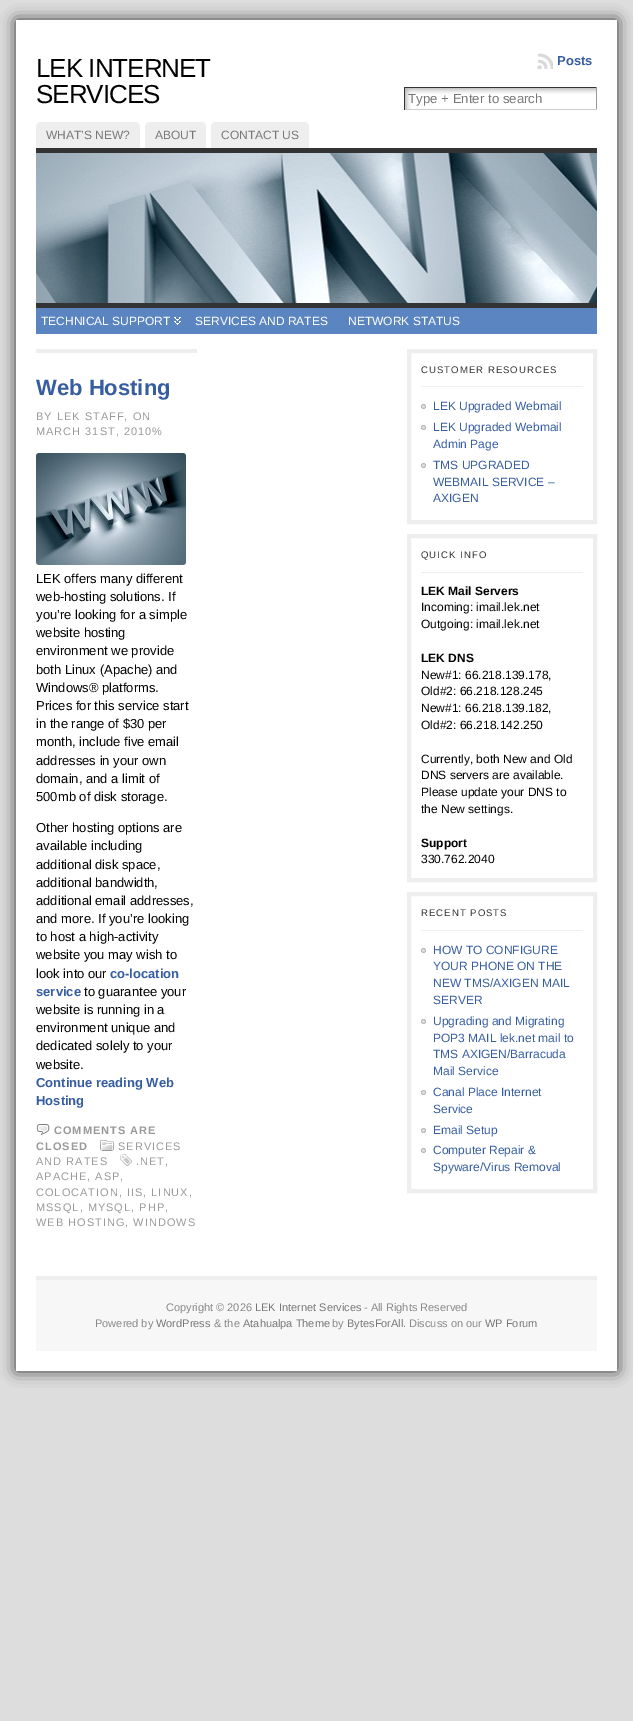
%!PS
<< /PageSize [633 1721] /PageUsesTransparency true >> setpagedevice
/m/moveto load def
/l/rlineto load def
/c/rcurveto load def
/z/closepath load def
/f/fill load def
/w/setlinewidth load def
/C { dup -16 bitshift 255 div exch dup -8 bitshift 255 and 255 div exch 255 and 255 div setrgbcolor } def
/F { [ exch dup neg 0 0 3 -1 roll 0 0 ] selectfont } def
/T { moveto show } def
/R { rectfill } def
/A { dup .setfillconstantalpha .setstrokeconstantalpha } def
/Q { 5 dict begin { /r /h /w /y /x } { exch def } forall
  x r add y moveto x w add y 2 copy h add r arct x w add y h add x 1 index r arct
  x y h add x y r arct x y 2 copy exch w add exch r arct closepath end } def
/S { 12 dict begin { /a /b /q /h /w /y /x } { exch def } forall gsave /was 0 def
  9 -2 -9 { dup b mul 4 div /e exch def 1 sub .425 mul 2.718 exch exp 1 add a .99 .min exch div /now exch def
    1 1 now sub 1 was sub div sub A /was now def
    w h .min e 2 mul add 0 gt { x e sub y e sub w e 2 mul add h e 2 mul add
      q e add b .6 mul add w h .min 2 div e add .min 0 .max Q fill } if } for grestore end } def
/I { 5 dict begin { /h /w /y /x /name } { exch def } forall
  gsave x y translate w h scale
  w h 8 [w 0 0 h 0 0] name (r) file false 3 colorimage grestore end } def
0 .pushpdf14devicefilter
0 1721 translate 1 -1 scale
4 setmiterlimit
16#DDDDDD C
0 0 633 1721 R
16#333333 C
16 20 601 1351 0 7.5 1 S
16#FFFFFF C
16 20 601 1351 R
/LiberationSans-Regular 26 F
16#000000 C
36 77 m -1 0 (LEK INTERNET) ashow
36 103 m -1 0 (SERVICES) ashow
(1.rgb) 537 53 16 16 I
/LiberationSans-Bold 13 F
16#365DA0 C
(Posts) 557 65 T
(2.rgb) 405 88 191 21 I
16#333333 C
404 87 193 1 R
16#999999 C
596 87 1 23 R
16#CCCCCC C
404 109 193 1 R
16#333333 C
404 87 1 23 R
/LiberationSans-Regular 13.25 F
16#777777 C
(Type + Enter to search) 408 103 T
16#EEEEEE C
41 122 m 94 0 l 3 0 5 2 5 5 c 0 21 l -104 0 l 0 -21 l 0 -3 2 -5 5 -5 c z f
/LiberationSans-Regular 12 F
16#777777 C
(WHAT’S NEW?) 46 139 T
16#EEEEEE C
150 122 m 51 0 l 3 0 5 2 5 5 c 0 21 l -61 0 l 0 -21 l 0 -3 2 -5 5 -5 c z f
16#777777 C
(ABOUT) 155 139 T
16#EEEEEE C
216 122 m 88 0 l 3 0 5 2 5 5 c 0 21 l -98 0 l 0 -21 l 0 -3 2 -5 5 -5 c z f
16#777777 C
(CONTACT US) 221 139 T
(3.rgb) 36 153 561 150 I
16#333333 C
36 148 561 5 R
36 303 561 5 R
16#5A85C1 C
36 308 561 26 R
(4.rgb) 174 317 7 8 I
16#FFFFFF C
(TECHNICAL SUPPORT) 41 325 T
(SERVICES AND RATES) 195 325 T
(NETWORK STATUS) 348 325 T
16#EEEEEE C
36 349 161 4 R
/LiberationSans-Bold 22 F
16#365DA0 C
(Web Hosting) 36 395 T
/LiberationSans-Regular 11 F
16#999999 C
36 420 m 1 0 (BY LEK STAFF, ON) ashow
36 435 m 1 0 (MARCH 31ST, 2010%) ashow
(5.rgb) 36 453 150 112 I
/LiberationSans-Regular 13 F
16#000000 C
(LEK offers many different) 36 583 T
(web-hosting solutions. If) 36 601 T
(you’re looking for a simple) 36 619 T
(website hosting) 36 637 T
(environment we provide) 36 655 T
(both Linux \(Apache\) and) 36 674 T
(Windows® platforms.) 36 692 T
(Prices for this service start) 36 710 T
(in the range of $30 per) 36 728 T
(month, include five email) 36 746 T
(addresses in your own) 36 765 T
(domain, and a limit of) 36 783 T
(500mb of disk storage.) 36 801 T
(Other hosting options are) 36 832 T
(available including) 36 850 T
(additional disk space,) 36 869 T
(additional bandwidth,) 36 887 T
(additional email addresses,) 36 905 T
(and more. If you’re looking) 36 923 T
(to host a high-activity) 36 941 T
(website you may wish to) 36 959 T
(look into our) 36 978 T
/LiberationSans-Bold 13 F
16#365DA0 C
(co-location) 110 978 T
(service) 36 996 T
/LiberationSans-Regular 13 F
16#000000 C
(to guarantee your) 84 996 T
(website is running in a) 36 1014 T
(environment unique and) 36 1032 T
(dedicated solely to your) 36 1050 T
(website.) 36 1069 T
/LiberationSans-Bold 13 F
16#365DA0 C
(Continue reading Web) 36 1087 T
(Hosting) 36 1105 T
(6.rgb) 36 1124 14 11 I
/LiberationSans-Bold 11 F
16#999999 C
54 1134 m 1 0 (COMMENTS ARE) ashow
36 1150 m 1 0 (CLOSED) ashow
(7.rgb) 100 1140 14 11 I
/LiberationSans-Regular 11 F
118 1150 m 1 0 (SERVICES) ashow
36 1165 m 1 0 (AND RATES) ashow
(8.rgb) 120 1154 12 12 I
136 1165 m 1 0 (.NET,) ashow
36 1180 m 1 0 (APACHE, ASP,) ashow
36 1196 m 1 0 (COLOCATION, IIS, LINUX,) ashow
36 1211 m 1 0 (MSSQL, MYSQL, PHP,) ashow
36 1226 m 1 0 (WEB HOSTING, WINDOWS) ashow
16#EEEEEE C
4 w
409 351 186 171 rectstroke
421 386 162 1 R
/LiberationSans-Regular 9.6 F
16#333333 C
421 373 m 1 0 (CUSTOMER RESOURCES) ashow
(9.rgb) 421 404 5 5 I
/LiberationSans-Regular 12 F
16#365DA0 C
(LEK Upgraded Webmail) 433 410 T
(9.rgb) 421 425 5 5 I
(LEK Upgraded Webmail) 433 431 T
(Admin Page) 433 448 T
(9.rgb) 421 463 5 5 I
(TMS UPGRADED) 433 469 T
(WEBMAIL SERVICE –) 433 486 T
(AXIGEN) 433 502 T
16#EEEEEE C
409 536 186 344 rectstroke
421 572 162 1 R
/LiberationSans-Regular 9.6 F
16#333333 C
421 558 m 1 0 (QUICK INFO) ashow
/LiberationSans-Bold 12 F
16#000000 C
(LEK Mail Servers) 421 595 T
/LiberationSans-Regular 12 F
(Incoming: imail.lek.net) 421 611 T
(Outgoing: imail.lek.net) 421 628 T
/LiberationSans-Bold 12 F
(LEK DNS) 421 662 T
/LiberationSans-Regular 12 F
(New#1: 66.218.139.178,) 421 679 T
(Old#2: 66.218.128.245) 421 695 T
(New#1: 66.218.139.182,) 421 712 T
(Old#2: 66.218.142.250) 421 729 T
(Currently, both New and Old) 421 763 T
(DNS servers are available.) 421 779 T
(Please update your DNS to) 421 796 T
(the New settings.) 421 813 T
/LiberationSans-Bold 12 F
(Support) 421 847 T
/LiberationSans-Regular 12 F
(330.762.2040) 421 863 T
16#EEEEEE C
409 894 186 297 rectstroke
421 930 162 1 R
/LiberationSans-Regular 9.6 F
16#333333 C
421 916 m 1 0 (RECENT POSTS) ashow
(9.rgb) 421 948 5 5 I
/LiberationSans-Regular 12 F
16#365DA0 C
(HOW TO CONFIGURE) 433 954 T
(YOUR PHONE ON THE) 433 970 T
(NEW TMS/AXIGEN MAIL) 433 987 T
(SERVER) 433 1004 T
(9.rgb) 421 1019 5 5 I
(Upgrading and Migrating) 433 1025 T
(POP3 MAIL lek.net mail to) 433 1042 T
(TMS AXIGEN/Barracuda) 433 1058 T
(Mail Service) 433 1075 T
(9.rgb) 421 1090 5 5 I
(Canal Place Internet) 433 1096 T
(Service) 433 1113 T
(9.rgb) 421 1128 5 5 I
(Email Setup) 433 1134 T
(9.rgb) 421 1148 5 5 I
(Computer Repair &) 433 1154 T
(Spyware/Virus Removal) 433 1171 T
16#F7F7F7 C
36 1280 561 71 R
16#EEEEEE C
36 1276 561 4 R
/LiberationSans-Regular 11 F
16#888888 C
(Copyright © 2026) 166 1311 T
16#777777 C
(LEK Internet Services) 255 1311 T
16#888888 C
(- All Rights Reserved) 364 1311 T
(Powered by) 95 1327 T
16#777777 C
(WordPress) 156 1327 T
16#888888 C
(& the) 214 1327 T
16#777777 C
(Atahualpa Theme) 243 1327 T
16#888888 C
(by) 332 1327 T
16#777777 C
(BytesForAll) 347 1327 T
16#888888 C
(. Discuss on our) 403 1327 T
16#777777 C
(WP Forum) 485 1327 T
.poppdf14devicefilter showpage
